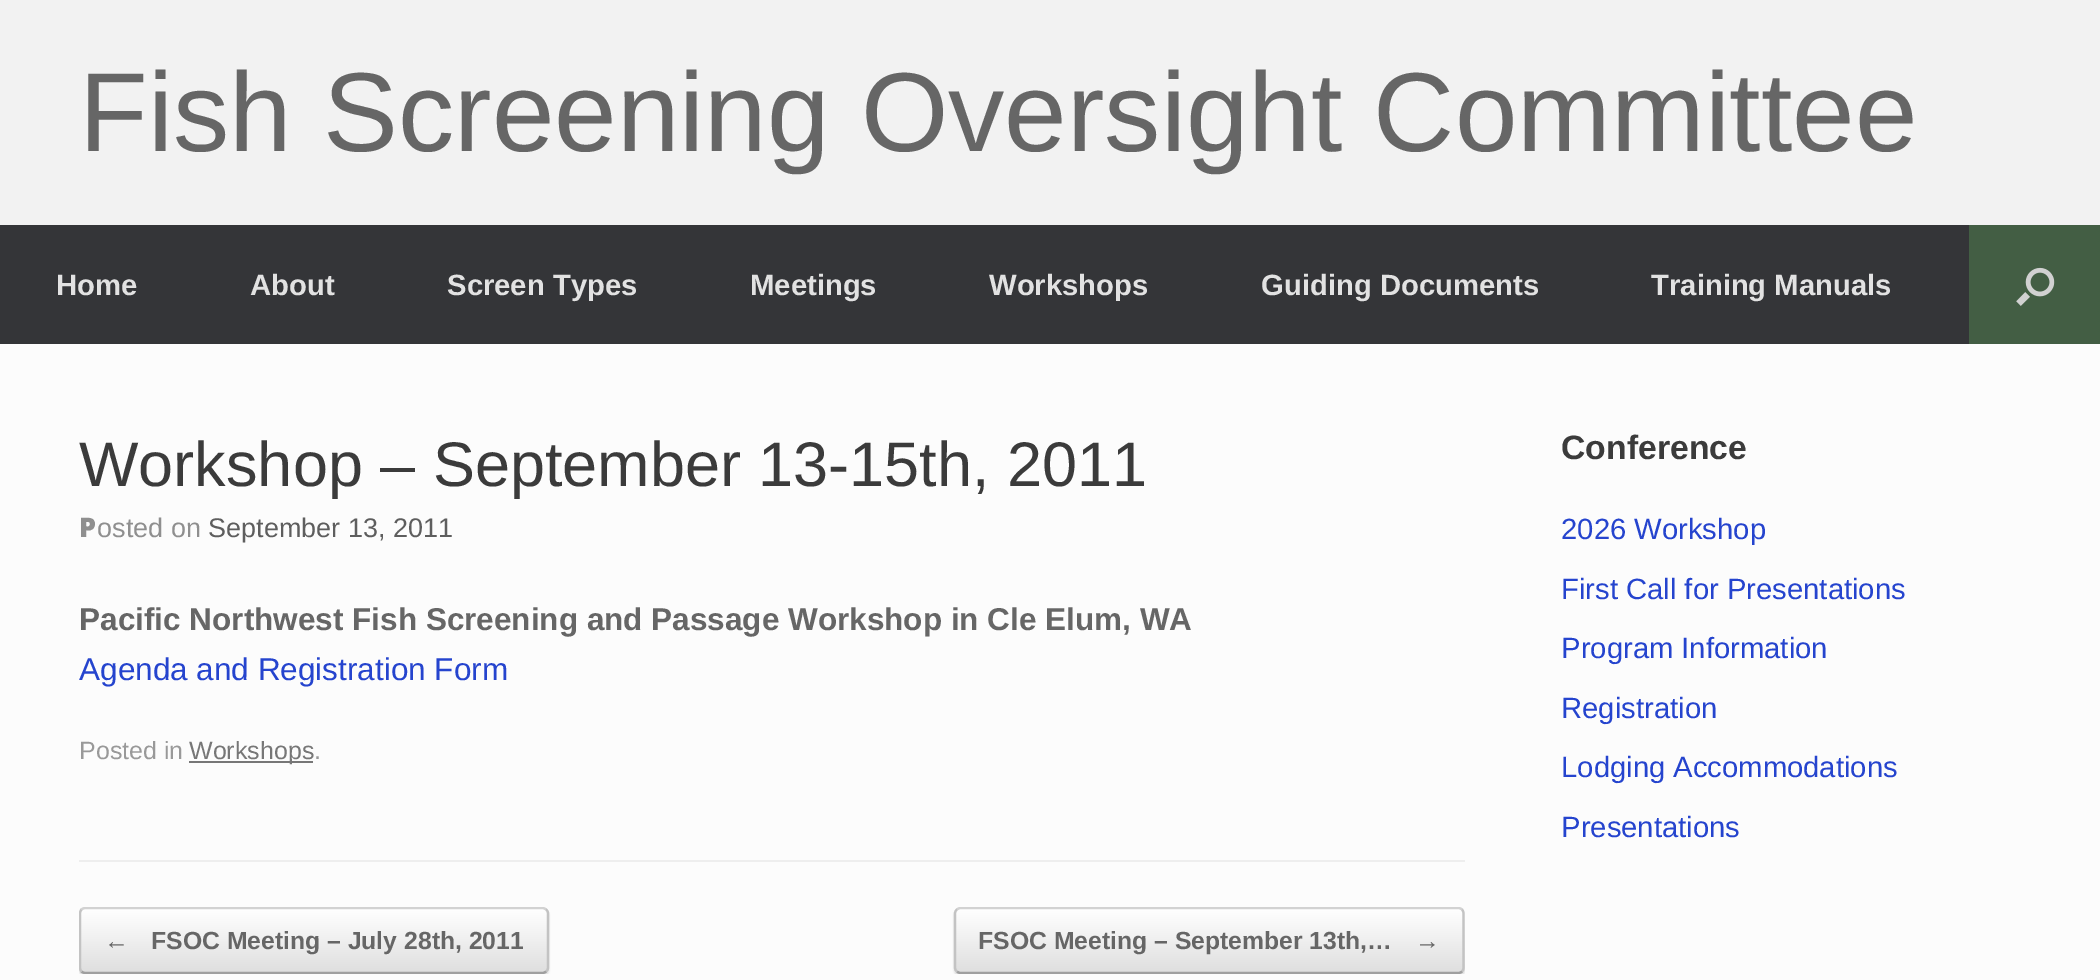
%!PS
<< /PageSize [2100 980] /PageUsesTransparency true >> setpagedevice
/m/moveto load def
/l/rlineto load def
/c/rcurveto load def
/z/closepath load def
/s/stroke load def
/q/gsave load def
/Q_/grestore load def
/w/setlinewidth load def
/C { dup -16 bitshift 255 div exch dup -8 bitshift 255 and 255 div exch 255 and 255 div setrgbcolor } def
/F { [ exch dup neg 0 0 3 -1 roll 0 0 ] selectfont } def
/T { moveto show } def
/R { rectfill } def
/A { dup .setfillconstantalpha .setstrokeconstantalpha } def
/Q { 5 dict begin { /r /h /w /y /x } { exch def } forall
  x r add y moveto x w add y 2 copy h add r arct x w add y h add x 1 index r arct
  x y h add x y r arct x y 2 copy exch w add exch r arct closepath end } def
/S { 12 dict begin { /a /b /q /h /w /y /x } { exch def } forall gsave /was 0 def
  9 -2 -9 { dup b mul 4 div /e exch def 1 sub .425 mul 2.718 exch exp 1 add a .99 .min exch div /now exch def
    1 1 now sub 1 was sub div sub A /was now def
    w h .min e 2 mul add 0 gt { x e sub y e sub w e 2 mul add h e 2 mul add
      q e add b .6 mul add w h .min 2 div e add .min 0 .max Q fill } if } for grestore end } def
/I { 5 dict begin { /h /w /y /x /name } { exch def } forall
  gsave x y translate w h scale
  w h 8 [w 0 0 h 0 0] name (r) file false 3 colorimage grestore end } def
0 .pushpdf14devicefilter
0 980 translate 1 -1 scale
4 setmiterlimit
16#F2F2F2 C
0 0 2100 980 R
/LiberationSans-Regular 112.5 F
16#666666 C
(Fish Screening Oversight Committee) 79 151 T
16#343538 C
0 225 1969 119 R
/LiberationSans-Bold 29.25 F
16#E2E2E2 C
(Home) 56 295 T
(About) 250 295 T
(Screen Types) 447 295 T
(Meetings) 750 295 T
(Workshops) 989 295 T
(Guiding Documents) 1261 295 T
(Training Manuals) 1651 295 T
16#435E44 C
1969 225 131 119 R
(1.rgb) 2016 267 39 39 I
16#FCFCFC C
0 344 2100 636 R
16#EEEEEE C
79 860 1386 2 R
/LiberationSans-Regular 63 F
16#3B3B3B C
(Workshop – September 13-15th, 2011) 79 486 T
/NotoSans-Black 27 F
16#8F8F8F C
(P) 79 537 T
/LiberationSans-Regular 27 F
(osted on) 97 537 T
16#5E5E5E C
(September 13, 2011) 208 537 T
/LiberationSans-Bold 31.5 F
16#666666 C
(Pacific Northwest Fish Screening and Passage Workshop in Cle Elum, WA) 79 630 T
/LiberationSans-Regular 31.5 F
16#2544CE C
(Agenda and Registration Form) 79 680 T
/LiberationSans-Regular 25 F
16#999999 C
(Posted in) 79 759 T
16#777777 C
189 761 124 2 R
(Workshops) 189 759 T
16#999999 C
(.) 314 759 T
q
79 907 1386 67 rectclip
16#000000 C
79 909 470 68 7 1 .12 S
Q_
q
79 907 470 67 7 Q clip newpath
q 79 909 m 470 0 l 0 63 l -470 0 l z clip newpath
<< /ShadingType 2 /ColorSpace /DeviceRGB /Coords [81 972 81 909] /Extend [true true] /Function << /FunctionType 2 /Domain [0 1] /C0 [.875 .875 .875] /C1 [1 1 1] /N 1 >> >> shfill Q_
Q_
q
79 907 1386 67 rectclip
16#D2D2D2 C
2.2 w
81.5 909.5 m 1 -1 2.5 -1.5 4 -1.5 c 456.5 0 l 1.5 0 3 .5 4 1.5 c s
Q_
16#C3C3C3 C
2.2 w
546 909.5 m 1.5 1 2 2.5 2 4 c 0 54 l 0 1.5 -.5 3 -2 4 c s
q
79 907 1386 67 rectclip
16#9F9F9F C
546 971.5 m -1 1 -2.5 1.5 -4 1.5 c -456.5 0 l -1.5 0 -3 -.5 -4 -1.5 c s
16#C3C3C3 C
81.5 971.5 m -1 -1 -1.5 -2.5 -1.5 -4 c 0 -54 l 0 -1.5 .5 -3 1.5 -4 c s
Q_
/LiberationSans-Bold 24.75 F
16#666666 C
(←) 104 949 T
(FSOC Meeting – July 28th, 2011) 151 949 T
q
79 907 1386 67 rectclip
16#000000 C
954 909 511 68 7 1 .12 S
Q_
q
954 907 511 67 7 Q clip newpath
q 954 909 m 511 0 l 0 63 l -511 0 l z clip newpath
<< /ShadingType 2 /ColorSpace /DeviceRGB /Coords [956 972 956 909] /Extend [true true] /Function << /FunctionType 2 /Domain [0 1] /C0 [.875 .875 .875] /C1 [1 1 1] /N 1 >> >> shfill Q_
Q_
q
79 907 1386 67 rectclip
16#D2D2D2 C
957 909.5 m 1 -1 2.5 -1.5 4 -1.5 c 497 0 l 1.5 0 3 .5 4 1.5 c s
Q_
16#C3C3C3 C
1462 909.5 m 1 1 1.5 2.5 1.5 4 c 0 54 l 0 1.5 -.5 3 -1.5 4 c s
q
79 907 1386 67 rectclip
16#9F9F9F C
1462 971.5 m -1 1 -2.5 1.5 -4 1.5 c -497 0 l -1.5 0 -3 -.5 -4 -1.5 c s
Q_
957 971.5 m -1.5 -1 -2 -2.5 -2 -4 c 0 -54 l 0 -1.5 .5 -3 2 -4 c s
16#666666 C
(FSOC Meeting – September 13th,…) 978 949 T
(→) 1415 949 T
/LiberationSans-Bold 33.75 F
16#3B3B3B C
(Conference) 1561 459 T
/LiberationSans-Regular 29.25 F
16#2544CE C
(2026 Workshop) 1561 539 T
(First Call for Presentations) 1561 599 T
(Program Information) 1561 658 T
(Registration) 1561 718 T
(Lodging Accommodations) 1561 777 T
(Presentations) 1561 837 T
.poppdf14devicefilter showpage
